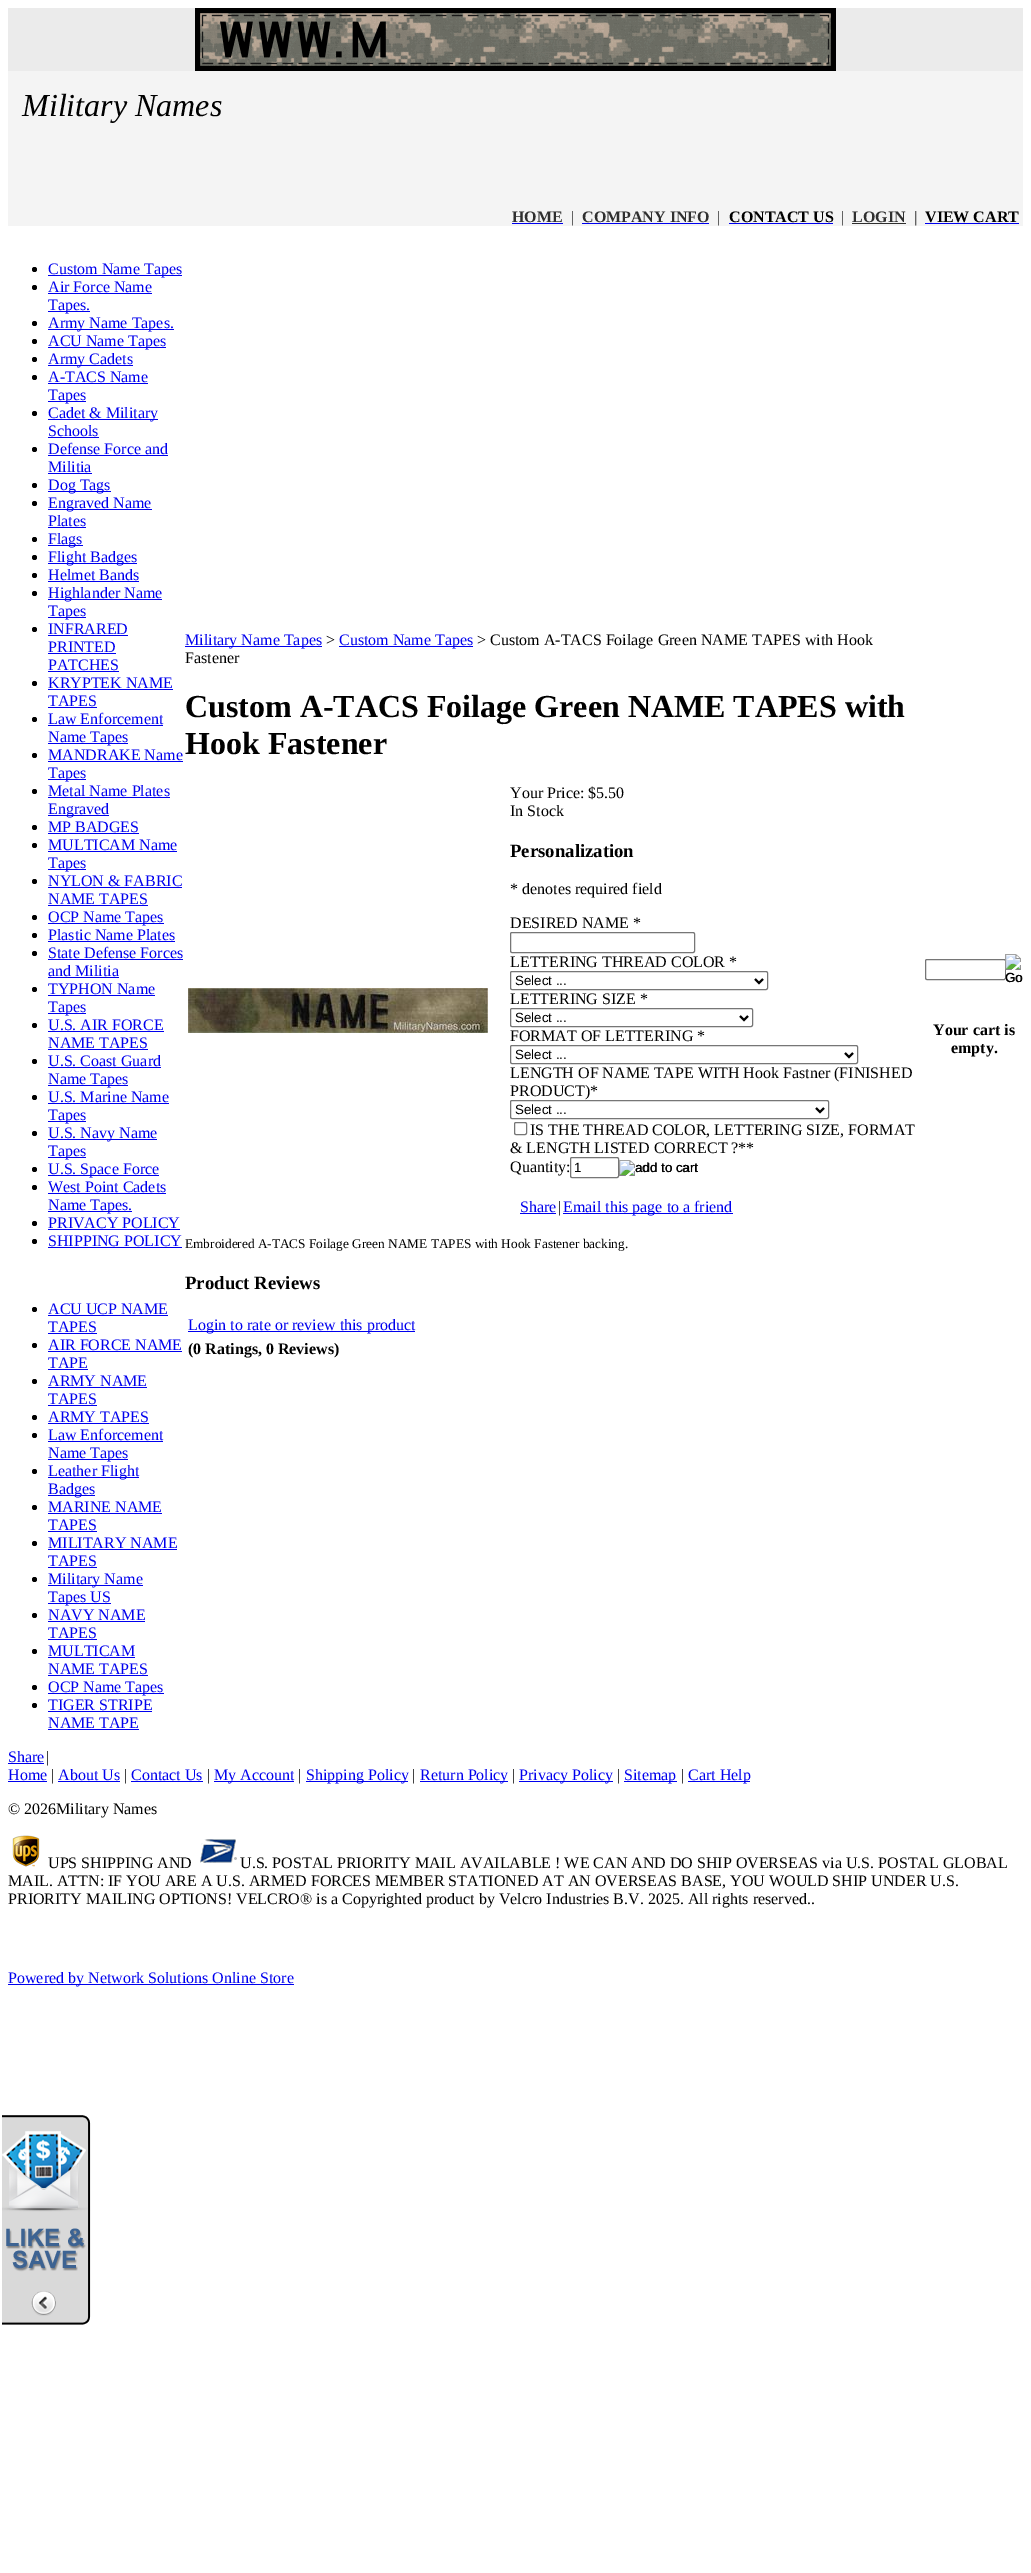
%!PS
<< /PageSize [1031 2573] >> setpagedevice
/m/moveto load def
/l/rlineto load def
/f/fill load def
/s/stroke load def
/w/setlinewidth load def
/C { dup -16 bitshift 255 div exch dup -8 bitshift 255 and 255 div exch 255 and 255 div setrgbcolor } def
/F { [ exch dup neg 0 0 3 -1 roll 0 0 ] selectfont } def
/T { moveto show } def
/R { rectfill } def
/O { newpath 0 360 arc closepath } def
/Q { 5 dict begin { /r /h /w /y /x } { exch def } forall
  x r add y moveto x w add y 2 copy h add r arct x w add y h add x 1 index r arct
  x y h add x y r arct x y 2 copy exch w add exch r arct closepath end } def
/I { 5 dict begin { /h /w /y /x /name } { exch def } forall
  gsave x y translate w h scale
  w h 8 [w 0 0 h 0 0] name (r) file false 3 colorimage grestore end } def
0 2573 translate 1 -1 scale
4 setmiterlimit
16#FFFFFF C
0 0 1031 2573 R
16#EBEBEB C
8 8 1015 63 R
(1.rgb) 195 8 641 63 I
16#F4F4F4 C
8 71 1015 155 R
/LiberationSerif-Italic 32 F
16#000000 C
(Military Names) 22 116 T
/LiberationSerif-Bold 16 F
16#2F2F2F C
(HOME) 512 222 T
16#0000EE C
512 223 51 1 R
/LiberationSerif-Regular 16 F
16#2F2F2F C
(|) 571 222 T
/LiberationSerif-Bold 16 F
(COMPANY INFO) 582 222 T
16#0000EE C
582 223 127 1 R
/LiberationSerif-Regular 16 F
16#2F2F2F C
(|) 717 222 T
/LiberationSerif-Bold 16 F
16#000000 C
(CONTACT US) 729 222 T
16#0000EE C
729 223 104 1 R
/LiberationSerif-Regular 16 F
16#2F2F2F C
(|) 841 222 T
/LiberationSerif-Bold 16 F
(LOGIN) 852 222 T
852 223 54 1 R
(|) 914 222 T
16#000000 C
(VIEW CART) 925 222 T
16#0000EE C
925 223 94 1 R
16#000000 C
34.5 269.5 2.5 O f
16#0000EE C
48 275 134 1 R
/LiberationSerif-Regular 16 F
(Custom Name Tapes) 48 274 T
16#000000 C
34.5 287.5 2.5 O f
16#0000EE C
(Air Force Name) 48 292 T
48 293 104 1 R
48 311 42 1 R
(Tapes.) 48 310 T
16#000000 C
34.5 323.5 2.5 O f
16#0000EE C
48 329 126 1 R
(Army Name Tapes.) 48 328 T
16#000000 C
34.5 341.5 2.5 O f
16#0000EE C
48 347 118 1 R
(ACU Name Tapes) 48 346 T
16#000000 C
34.5 359.5 2.5 O f
16#0000EE C
48 365 85 1 R
(Army Cadets) 48 364 T
16#000000 C
34.5 377.5 2.5 O f
16#0000EE C
(A-TACS Name) 48 382 T
48 383 100 1 R
48 401 38 1 R
(Tapes) 48 400 T
16#000000 C
34.5 413.5 2.5 O f
16#0000EE C
48 419 110 1 R
(Cadet & Military) 48 418 T
(Schools) 48 436 T
48 437 51 1 R
16#000000 C
34.5 449.5 2.5 O f
16#0000EE C
(Defense Force and) 48 454 T
48 455 120 1 R
(Militia) 48 472 T
48 473 44 1 R
16#000000 C
34.5 485.5 2.5 O f
16#0000EE C
48 491 63 1 R
(Dog Tags) 48 490 T
16#000000 C
34.5 503.5 2.5 O f
16#0000EE C
48 509 104 1 R
(Engraved Name) 48 508 T
(Plates) 48 526 T
48 527 38 1 R
16#000000 C
34.5 539.5 2.5 O f
16#0000EE C
48 545 35 1 R
(Flags) 48 544 T
16#000000 C
34.5 557.5 2.5 O f
16#0000EE C
48 563 89 1 R
(Flight Badges) 48 562 T
16#000000 C
34.5 575.5 2.5 O f
16#0000EE C
(Helmet Bands) 48 580 T
48 581 91 1 R
16#000000 C
34.5 593.5 2.5 O f
16#0000EE C
48 599 114 1 R
(Highlander Name) 48 598 T
48 617 38 1 R
(Tapes) 48 616 T
16#000000 C
34.5 629.5 2.5 O f
16#0000EE C
(INFRARED) 48 634 T
48 635 80 1 R
(PRINTED) 48 652 T
48 653 68 1 R
(PATCHES) 48 670 T
48 671 71 1 R
16#000000 C
34.5 683.5 2.5 O f
16#0000EE C
(KRYPTEK NAME) 48 688 T
48 689 125 1 R
(TAPES) 48 706 T
48 707 49 1 R
16#000000 C
34.5 719.5 2.5 O f
16#0000EE C
(Law Enforcement) 48 724 T
48 725 115 1 R
48 743 80 1 R
(Name Tapes) 48 742 T
16#000000 C
34.5 755.5 2.5 O f
16#0000EE C
(MANDRAKE Name) 48 760 T
48 761 135 1 R
48 779 38 1 R
(Tapes) 48 778 T
16#000000 C
34.5 791.5 2.5 O f
16#0000EE C
(Metal Name Plates) 48 796 T
48 797 122 1 R
48 815 61 1 R
(Engraved) 48 814 T
16#000000 C
34.5 827.5 2.5 O f
16#0000EE C
(MP BADGES) 48 832 T
48 833 91 1 R
16#000000 C
34.5 845.5 2.5 O f
16#0000EE C
(MULTICAM Name) 48 850 T
48 851 129 1 R
48 869 38 1 R
(Tapes) 48 868 T
16#000000 C
34.5 881.5 2.5 O f
16#0000EE C
(NYLON & FABRIC) 48 886 T
48 887 134 1 R
(NAME TAPES) 48 904 T
48 905 100 1 R
16#000000 C
34.5 917.5 2.5 O f
16#0000EE C
48 923 116 1 R
(OCP Name Tapes) 48 922 T
16#000000 C
34.5 935.5 2.5 O f
16#0000EE C
(Plastic Name Plates) 48 940 T
48 941 127 1 R
16#000000 C
34.5 953.5 2.5 O f
16#0000EE C
(State Defense Forces) 48 958 T
48 959 135 1 R
(and Militia) 48 976 T
48 977 71 1 R
16#000000 C
34.5 989.5 2.5 O f
16#0000EE C
(TYPHON Name) 48 994 T
48 995 107 1 R
48 1013 38 1 R
(Tapes) 48 1012 T
16#000000 C
34.5 1025.5 2.5 O f
16#0000EE C
(U.S. AIR FORCE) 48 1030 T
48 1031 116 1 R
(NAME TAPES) 48 1048 T
48 1049 100 1 R
16#000000 C
34.5 1061.5 2.5 O f
16#0000EE C
(U.S. Coast Guard) 48 1066 T
48 1067 113 1 R
48 1085 80 1 R
(Name Tapes) 48 1084 T
16#000000 C
34.5 1097.5 2.5 O f
16#0000EE C
(U.S. Marine Name) 48 1102 T
48 1103 121 1 R
48 1121 38 1 R
(Tapes) 48 1120 T
16#000000 C
34.5 1133.5 2.5 O f
16#0000EE C
48 1139 109 1 R
(U.S. Navy Name) 48 1138 T
48 1157 38 1 R
(Tapes) 48 1156 T
16#000000 C
34.5 1169.5 2.5 O f
16#0000EE C
48 1175 111 1 R
(U.S. Space Force) 48 1174 T
16#000000 C
34.5 1187.5 2.5 O f
16#0000EE C
(West Point Cadets) 48 1192 T
48 1193 118 1 R
48 1211 84 1 R
(Name Tapes.) 48 1210 T
16#000000 C
34.5 1223.5 2.5 O f
16#0000EE C
(PRIVACY POLICY) 48 1228 T
48 1229 132 1 R
16#000000 C
34.5 1241.5 2.5 O f
16#0000EE C
(SHIPPING POLICY) 48 1246 T
48 1247 134 1 R
16#000000 C
34.5 1309.5 2.5 O f
16#0000EE C
(ACU UCP NAME) 48 1314 T
48 1315 120 1 R
(TAPES) 48 1332 T
48 1333 49 1 R
16#000000 C
34.5 1345.5 2.5 O f
16#0000EE C
(AIR FORCE NAME) 48 1350 T
48 1351 134 1 R
(TAPE) 48 1368 T
48 1369 40 1 R
16#000000 C
34.5 1381.5 2.5 O f
16#0000EE C
(ARMY NAME) 48 1386 T
48 1387 99 1 R
(TAPES) 48 1404 T
48 1405 49 1 R
16#000000 C
34.5 1417.5 2.5 O f
16#0000EE C
(ARMY TAPES) 48 1422 T
48 1423 101 1 R
16#000000 C
34.5 1435.5 2.5 O f
16#0000EE C
(Law Enforcement) 48 1440 T
48 1441 115 1 R
48 1459 80 1 R
(Name Tapes) 48 1458 T
16#000000 C
34.5 1471.5 2.5 O f
16#0000EE C
48 1477 91 1 R
(Leather Flight) 48 1476 T
48 1495 47 1 R
(Badges) 48 1494 T
16#000000 C
34.5 1507.5 2.5 O f
16#0000EE C
(MARINE NAME) 48 1512 T
48 1513 114 1 R
(TAPES) 48 1530 T
48 1531 49 1 R
16#000000 C
34.5 1543.5 2.5 O f
16#0000EE C
(MILITARY NAME) 48 1548 T
48 1549 129 1 R
(TAPES) 48 1566 T
48 1567 49 1 R
16#000000 C
34.5 1579.5 2.5 O f
16#0000EE C
48 1585 95 1 R
(Military Name) 48 1584 T
48 1603 63 1 R
(Tapes US) 48 1602 T
16#000000 C
34.5 1615.5 2.5 O f
16#0000EE C
(NAVY NAME) 48 1620 T
48 1621 97 1 R
(TAPES) 48 1638 T
48 1639 49 1 R
16#000000 C
34.5 1651.5 2.5 O f
16#0000EE C
(MULTICAM) 48 1656 T
48 1657 87 1 R
(NAME TAPES) 48 1674 T
48 1675 100 1 R
16#000000 C
34.5 1687.5 2.5 O f
16#0000EE C
48 1693 116 1 R
(OCP Name Tapes) 48 1692 T
16#000000 C
34.5 1705.5 2.5 O f
16#0000EE C
(TIGER STRIPE) 48 1710 T
48 1711 104 1 R
(NAME TAPE) 48 1728 T
48 1729 91 1 R
(Share) 8 1762 T
8 1763 36 1 R
16#000000 C
(|) 46 1762 T
16#0000EE C
185 646 137 1 R
(Military Name Tapes) 185 645 T
16#000000 C
(>) 326 645 T
16#0000EE C
339 646 134 1 R
(Custom Name Tapes) 339 645 T
16#000000 C
(> Custom A-TACS Foilage Green NAME TAPES with Hook) 477 645 T
(Fastener) 185 663 T
/LiberationSerif-Bold 32 F
(Custom A-TACS Foilage Green NAME TAPES with) 185 717 T
(Hook Fastener) 185 754 T
(2.rgb) 188 988 300 45 I
/LiberationSerif-Regular 16 F
(Your Price: $5.50) 510 798 T
(In Stock) 510 816 T
/LiberationSerif-Bold 18.75 F
(Personalization) 510 857 T
/LiberationSerif-Regular 16 F
(* denotes required field) 510 894 T
(DESIRED NAME *) 510 928 T
16#767676 C
510.5 932.5 184 20 1.5 Q s
16#000000 C
(LETTERING THREAD COLOR *) 510 967 T
16#767676 C
510.5 971.5 257 18 1.5 Q s
16#000000 C
2 w
755 979 m 4 4 l 4 -4 l s
/LiberationSans-Regular 13.3 F
(Select ...) 515 985 T
/LiberationSerif-Regular 16 F
(LETTERING SIZE *) 510 1004 T
16#767676 C
1 w
510.5 1008.5 242 18 1.5 Q s
16#000000 C
2 w
740 1016 m 4 4 l 4 -4 l s
/LiberationSans-Regular 13.3 F
(Select ...) 515 1022 T
/LiberationSerif-Regular 16 F
(FORMAT OF LETTERING *) 510 1041 T
16#767676 C
1 w
510.5 1045.5 347 18 1.5 Q s
16#000000 C
2 w
845 1053 m 4 4 l 4 -4 l s
/LiberationSans-Regular 13.3 F
(Select ...) 515 1059 T
/LiberationSerif-Regular 16 F
(LENGTH OF NAME TAPE WITH Hook Fastner \(FINISHED) 510 1078 T
(PRODUCT\)*) 510 1096 T
16#767676 C
1 w
510.5 1100.5 318 18 1.5 Q s
16#000000 C
2 w
816 1108 m 4 4 l 4 -4 l s
/LiberationSans-Regular 13.3 F
(Select ...) 515 1114 T
16#767676 C
1 w
514.5 1122.5 12 12 1.5 Q s
/LiberationSerif-Regular 16 F
16#000000 C
(IS THE THREAD COLOR, LETTERING SIZE, FORMAT) 530 1135 T
(& LENGTH LISTED CORRECT ?**) 510 1153 T
(Quantity:) 510 1172 T
16#767676 C
570.5 1157.5 48 20 1.5 Q s
/LiberationSans-Regular 13.3 F
16#000000 C
(1) 574 1172 T
(3.rgb) 619 1160 79 16 I
(add to cart) 635 1172 T
/LiberationSerif-Regular 16 F
16#0000EE C
(Share) 520 1212 T
520 1213 36 1 R
16#000000 C
(|) 558 1212 T
16#0000EE C
563 1213 170 1 R
(Email this page to a friend) 563 1212 T
/LiberationSerif-Regular 13.3 F
16#000000 C
(Embroidered A-TACS Foilage Green NAME TAPES with Hook Fastener backing.) 185 1248 T
/LiberationSerif-Bold 18.75 F
(Product Reviews) 185 1289 T
16#0000EE C
188 1331 227 1 R
/LiberationSerif-Regular 16 F
(Login to rate or review this product) 188 1330 T
/LiberationSerif-Bold 16 F
16#000000 C
(\(0 Ratings, 0 Reviews\)) 188 1354 T
16#767676 C
925.5 959.5 80 20 1.5 Q s
(4.rgb) 1005 954 18 28 I
/LiberationSans-Regular 13.3 F
16#000000 C
(Go) 1005 982 T
/LiberationSerif-Bold 16 F
(Your cart is) 933 1035 T
(empty.) 951 1053 T
/LiberationSerif-Regular 16 F
16#0000EE C
(Home) 8 1780 T
8 1781 39 1 R
16#000000 C
(|) 51 1780 T
16#0000EE C
(About Us) 58 1780 T
58 1781 62 1 R
16#000000 C
(|) 124 1780 T
16#0000EE C
(Contact Us) 131 1780 T
131 1781 72 1 R
16#000000 C
(|) 207 1780 T
16#0000EE C
214 1781 80 1 R
(My Account) 214 1780 T
16#000000 C
(|) 298 1780 T
16#0000EE C
306 1781 102 1 R
(Shipping Policy) 306 1780 T
16#000000 C
(|) 412 1780 T
16#0000EE C
420 1781 88 1 R
(Return Policy) 420 1780 T
16#000000 C
(|) 512 1780 T
16#0000EE C
519 1781 94 1 R
(Privacy Policy) 519 1780 T
16#000000 C
(|) 617 1780 T
16#0000EE C
624 1781 53 1 R
(Sitemap) 624 1780 T
16#000000 C
(|) 681 1780 T
16#0000EE C
688 1781 62 1 R
(Cart Help) 688 1780 T
16#000000 C
(© 2026Military Names) 8 1814 T
(5.rgb) 12 1835 28 32 I
(UPS SHIPPING AND) 48 1868 T
(6.rgb) 200 1839 37 24 I
(U.S. POSTAL PRIORITY MAIL AVAILABLE ! WE CAN AND DO SHIP OVERSEAS via U.S. POSTAL GLOBAL) 240 1868 T
(MAIL. ATTN: IF YOU ARE A U.S. ARMED FORCES MEMBER STATIONED AT AN OVERSEAS BASE, YOU WOULD SHIP UNDER U.S.) 8 1886 T
(PRIORITY MAILING OPTIONS! VELCRO® is a Copyrighted product by Velcro Industries B.V. 2025. All rights reserved..) 8 1904 T
16#0000EE C
8 1984 286 1 R
(Powered by Network Solutions Online Store) 8 1983 T
(7.rgb) 2 2115 89 210 I
showpage
